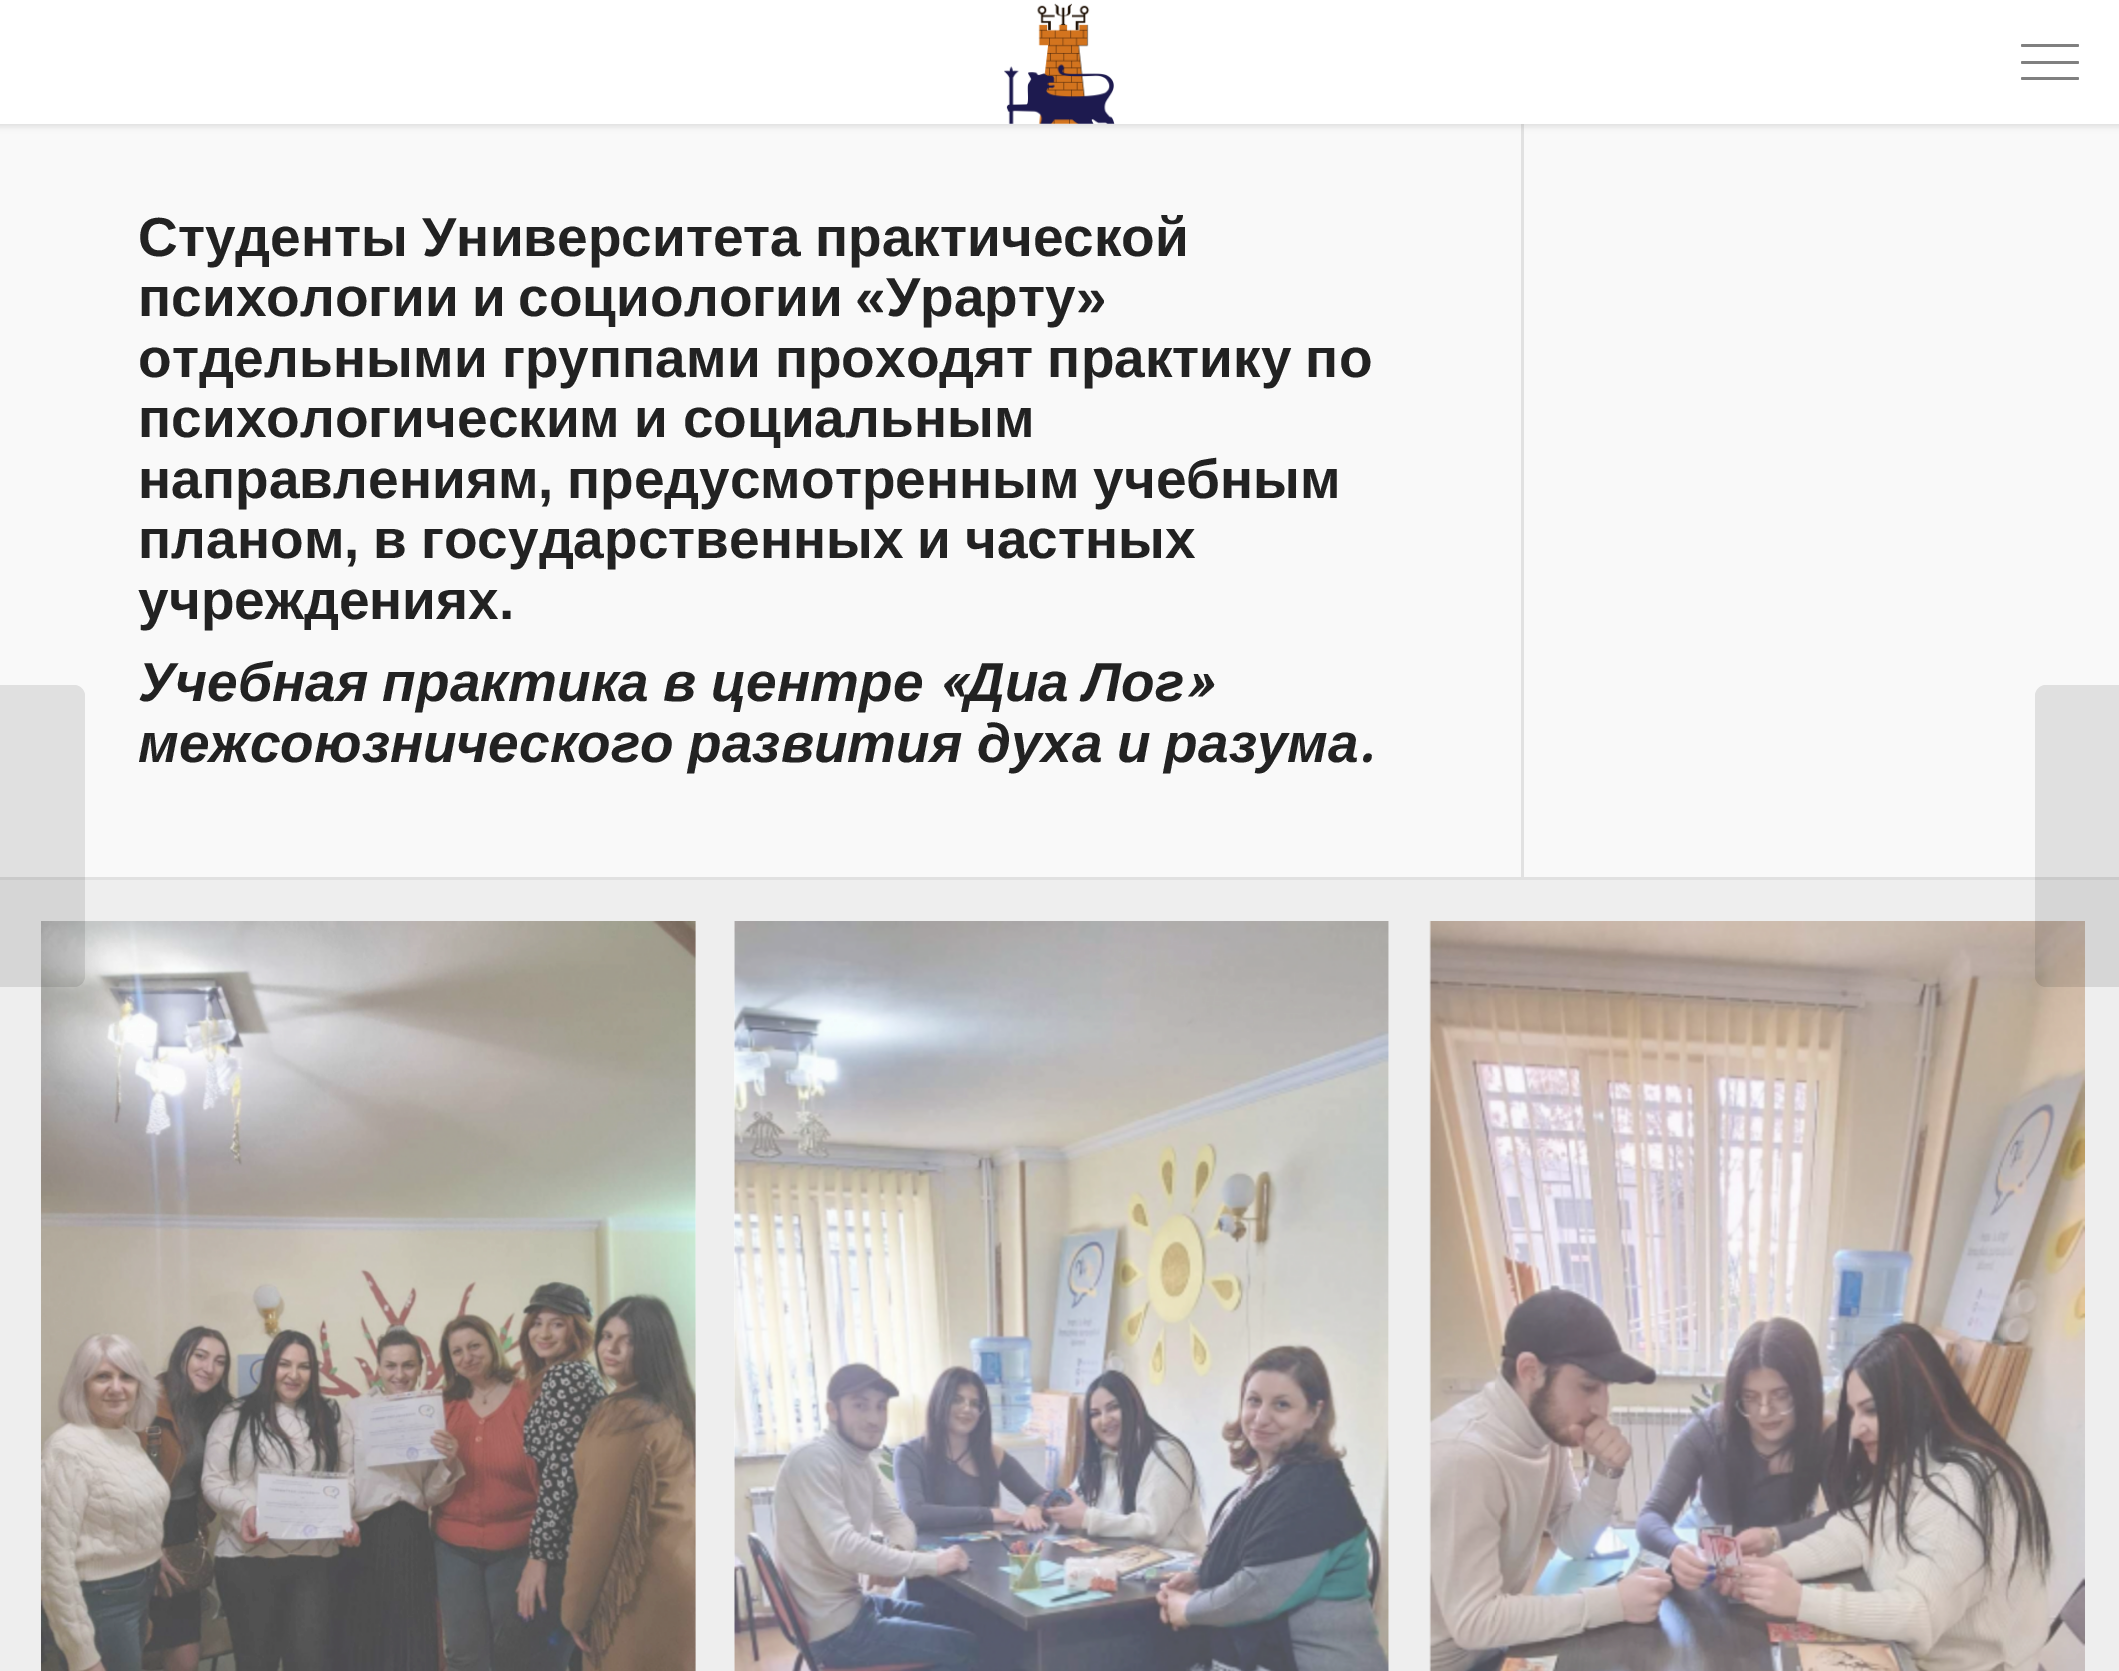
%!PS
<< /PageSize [2119 1671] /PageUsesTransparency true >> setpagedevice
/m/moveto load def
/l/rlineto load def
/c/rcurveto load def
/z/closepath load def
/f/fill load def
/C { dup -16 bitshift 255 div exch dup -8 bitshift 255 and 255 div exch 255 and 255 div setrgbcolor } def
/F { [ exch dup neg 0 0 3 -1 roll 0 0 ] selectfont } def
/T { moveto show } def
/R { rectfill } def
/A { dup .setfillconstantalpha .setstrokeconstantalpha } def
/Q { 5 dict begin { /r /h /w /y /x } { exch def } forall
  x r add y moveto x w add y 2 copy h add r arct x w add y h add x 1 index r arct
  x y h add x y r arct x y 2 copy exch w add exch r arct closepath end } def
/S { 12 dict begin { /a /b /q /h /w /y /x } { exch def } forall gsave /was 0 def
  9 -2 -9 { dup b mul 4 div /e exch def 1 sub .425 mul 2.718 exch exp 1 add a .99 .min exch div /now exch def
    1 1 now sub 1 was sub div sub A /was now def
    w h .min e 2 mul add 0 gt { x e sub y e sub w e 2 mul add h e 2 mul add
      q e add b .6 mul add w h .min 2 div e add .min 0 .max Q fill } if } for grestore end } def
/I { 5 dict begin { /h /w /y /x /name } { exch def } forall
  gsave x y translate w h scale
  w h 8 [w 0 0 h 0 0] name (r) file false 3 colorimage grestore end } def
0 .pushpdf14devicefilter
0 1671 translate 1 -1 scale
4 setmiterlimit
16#F9F9F9 C
0 0 2119 1671 R
16#E1E1E1 C
1521 124 3 753 R
16#000000 C
-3 -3 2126 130 0 3 .1 S
16#FFFFFF C
0 0 2119 124 R
(1.rgb) 1004 3 111 121 I
16#808080 C
2021 61 58 3 1.5 Q f
2021 44 58 3 1.5 Q f
2021 77 58 3 1.5 Q f
/LiberationSans-Bold 55 F
16#222222 C
138 256 m -1 0 32 (Студенты Университета практической) widthshow
138 316 m -2.5 0 32 (психологии и социологии «Урарту») widthshow
138 377 m -1 0 32 (отдельными группами проходят практику по) widthshow
138 437 m -1 0 32 (психологическим и социальным) widthshow
138 498 m -2 0 32 (направлениям, предусмотренным учебным) widthshow
138 558 m -1.5 0 32 (планом, в государственных и частных) widthshow
(учреждениях.) 138 619 T
/LiberationSans-BoldItalic 55 F
138 701 m -1 0 32 (Учебная практика в центре) widthshow
/DroidSerif-BoldItalic 55 F
(«) 937 701 T
/LiberationSans-BoldItalic 55 F
965 701 m -1 0 32 (Диа Лог) widthshow
/DroidSerif-BoldItalic 55 F
(») 1184 701 T
/LiberationSans-BoldItalic 55 F
138 762 m -1 0 32 (межсоюзнического развития духа и разума) widthshow
/DroidSerif-BoldItalic 55 F
(.) 1358 762 T
16#E1E1E1 C
0 877 2119 3 R
16#EEEEEE C
0 880 2119 791 R
16#F9F9F9 C
41 921 655 750 R
(2.rgb) 41 921 655 750 I
734 921 655 750 R
(3.rgb) 734 921 655 750 I
1430 921 655 750 R
(4.rgb) 1429 921 656 750 I
0.1 A
16#000000 C
0 685 m 74 0 l 6 0 11 5 11 11 c 0 280 l 0 6 -5 11 -11 11 c -74 0 l z f
2046 685 m 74 0 l 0 302 l -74 0 l -6 0 -11 -5 -11 -11 c 0 -280 l 0 -6 5 -11 11 -11 c z f
.poppdf14devicefilter showpage
